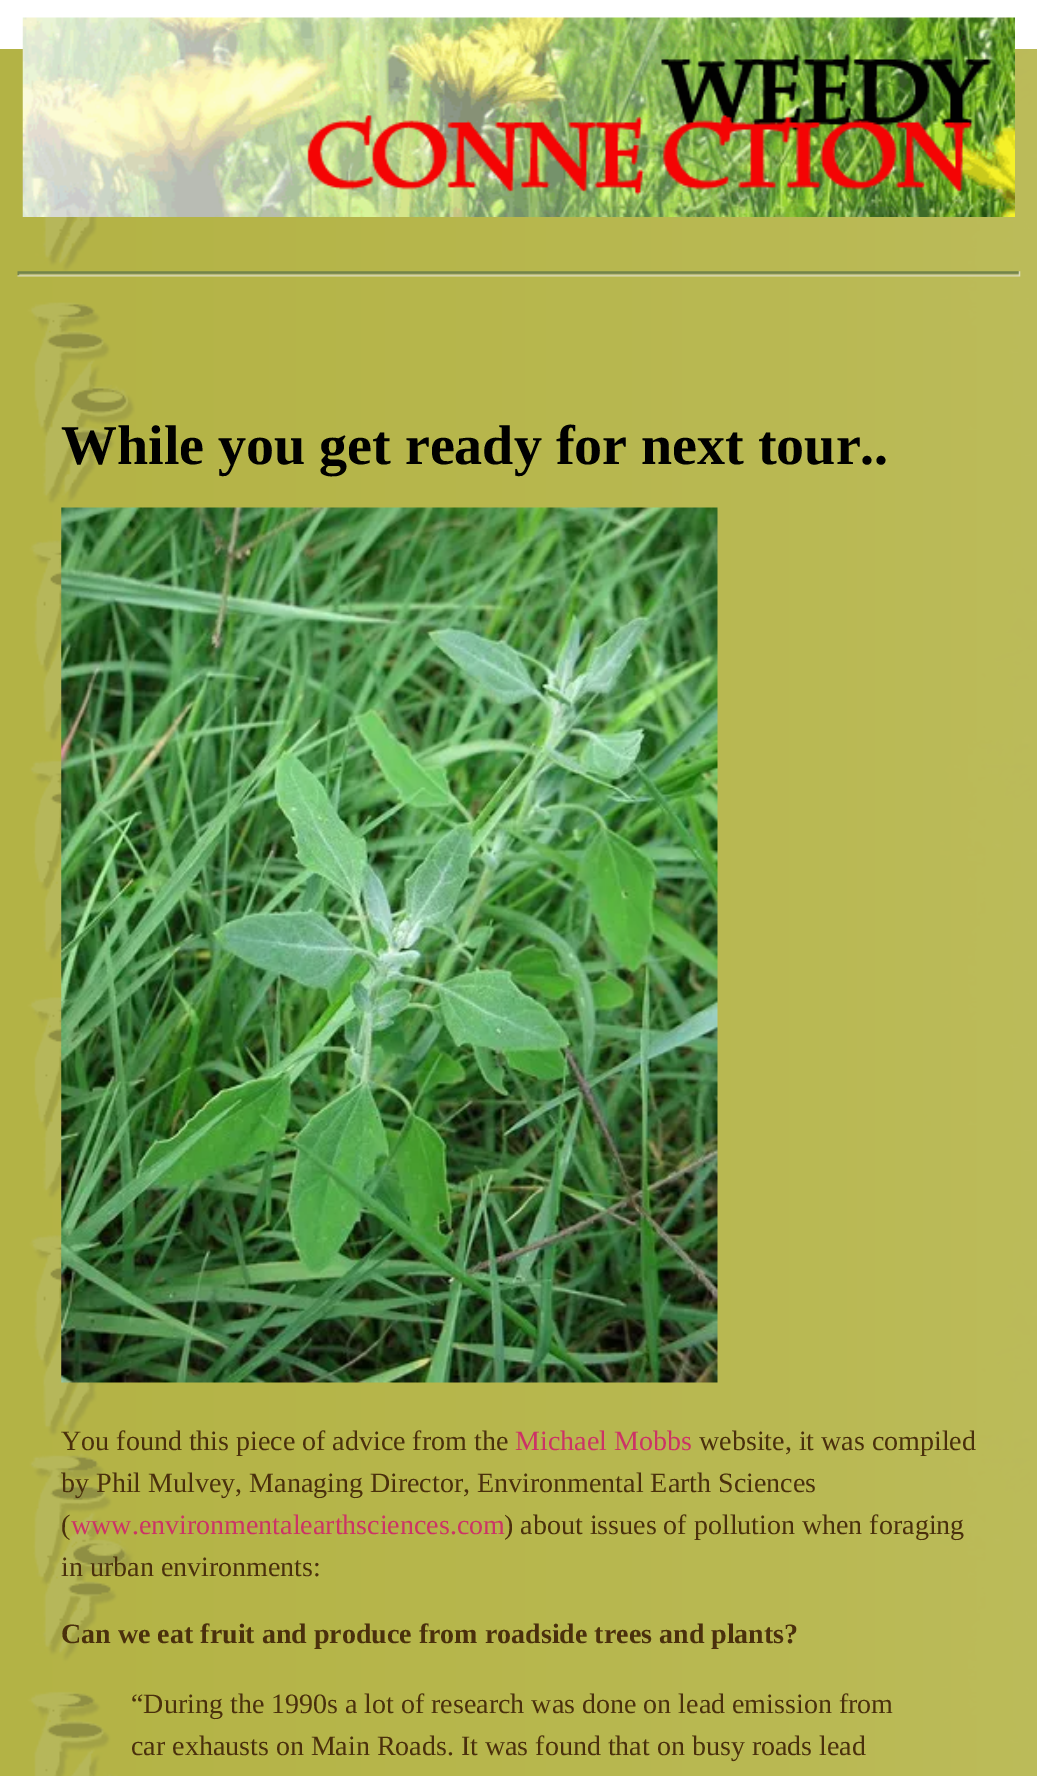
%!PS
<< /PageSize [1037 1776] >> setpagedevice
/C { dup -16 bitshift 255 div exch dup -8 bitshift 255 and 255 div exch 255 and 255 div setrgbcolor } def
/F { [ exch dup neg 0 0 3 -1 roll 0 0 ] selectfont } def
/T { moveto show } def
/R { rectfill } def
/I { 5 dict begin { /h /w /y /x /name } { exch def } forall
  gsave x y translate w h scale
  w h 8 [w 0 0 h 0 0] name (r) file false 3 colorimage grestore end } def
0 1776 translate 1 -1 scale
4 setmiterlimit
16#FFFFFF C
0 0 1037 1776 R
(3.rgb) 0 49 1037 1727 I
(1.rgb) 22 17 993 200 I
(2.rgb) 17 271 1004 6 I
/LiberationSerif-Bold 56 F
16#000000 C
(While you get ready for next tour..) 61 464 T
(4.rgb) 61 507 657 876 I
/LiberationSerif-Regular 28 F
16#4A300C C
(You found this piece of advice from the) 61 1450 T
16#CC3366 C
(Michael Mobbs) 515 1450 T
16#4A300C C
(website, it was compiled) 699 1450 T
(by Phil Mulvey, Managing Director, Environmental Earth Sciences) 61 1492 T
(\() 61 1534 T
16#CC3366 C
(www.environmentalearthsciences.com) 71 1534 T
16#4A300C C
(\) about issues of pollution when foraging) 504 1534 T
(in urban environments:) 61 1576 T
/LiberationSerif-Bold 28 F
(Can we eat fruit and produce from roadside trees and plants?) 61 1643 T
/LiberationSerif-Regular 28 F
(“During the 1990s a lot of research was done on lead emission from) 131 1713 T
(car exhausts on Main Roads. It was found that on busy roads lead) 131 1755 T
showpage
